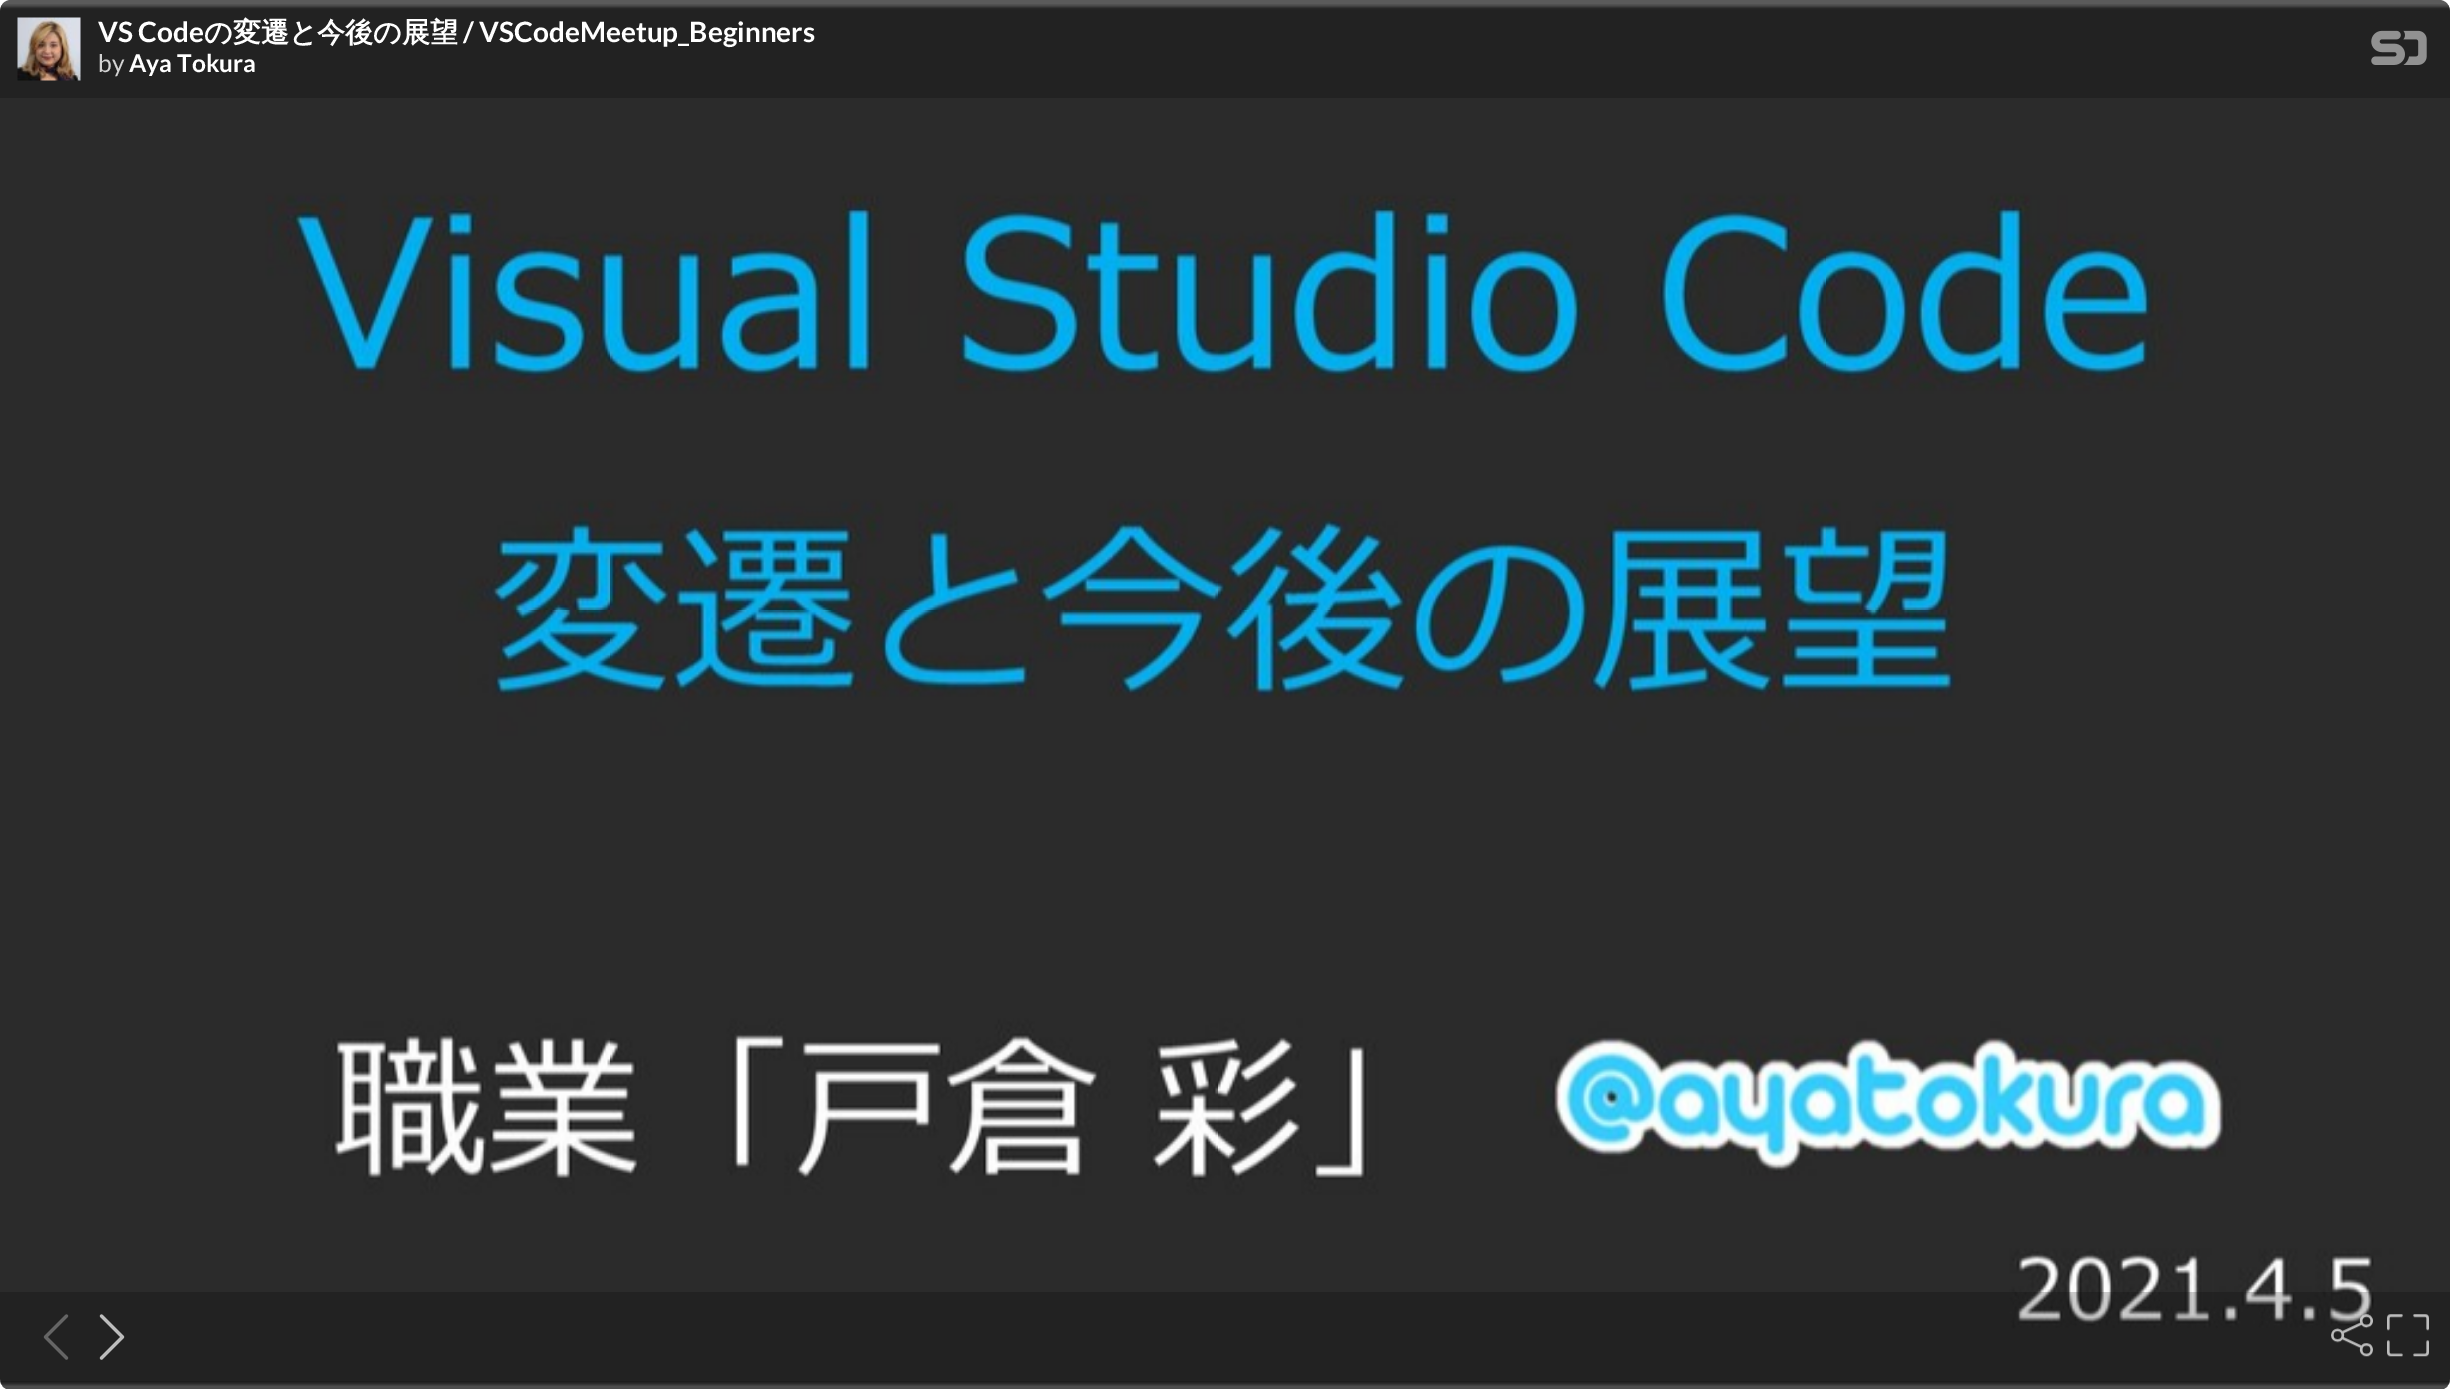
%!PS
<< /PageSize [2450 1389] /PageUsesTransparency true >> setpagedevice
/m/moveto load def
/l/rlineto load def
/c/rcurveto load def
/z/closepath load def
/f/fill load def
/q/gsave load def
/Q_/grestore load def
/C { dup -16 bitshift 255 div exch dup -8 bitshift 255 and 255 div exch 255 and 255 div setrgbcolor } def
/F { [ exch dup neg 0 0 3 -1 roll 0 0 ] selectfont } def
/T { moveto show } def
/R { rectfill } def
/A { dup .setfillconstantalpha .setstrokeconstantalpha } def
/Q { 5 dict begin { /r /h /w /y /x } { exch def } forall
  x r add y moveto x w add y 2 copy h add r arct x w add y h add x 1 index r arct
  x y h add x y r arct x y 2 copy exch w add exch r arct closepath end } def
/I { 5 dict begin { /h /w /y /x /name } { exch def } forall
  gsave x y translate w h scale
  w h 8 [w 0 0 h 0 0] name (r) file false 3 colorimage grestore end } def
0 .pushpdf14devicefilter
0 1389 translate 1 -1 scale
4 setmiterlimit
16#FFFFFF C
0 0 2450 1389 R
(2.rgb) 2448 5 2 1379 I
16#727272 C
0 0 2450 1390 11 Q f
(1.rgb) 0 4 2450 1382 I
0.2 A
16#000000 C
11 0 m 2428 0 l 6 0 11 5 11 11 c 0 87 l -2450 0 l 0 -87 l 0 -6 5 -11 11 -11 c z f
1 A
(3.rgb) 17 17 64 64 I
/Lato-Bold 28 F
16#FFFFFF C
(VS Code) 98 42 T
/WenQuanYiZenHei-Bold 28 F
(の変遷と今後の展望) 204 42 T
/Lato-Bold 28 F
(/ VSCodeMeetup_Beginners) 463 42 T
(4.rgb) 2371 30 56 35 I
/Lato-Regular 24.5 F
16#D3D3D3 C
(by) 98 72 T
/Lato-Bold 24.5 F
16#FFFFFF C
(Aya Tokura) 129 72 T
0.2 A
16#000000 C
0 1292 m 2450 0 l 0 87 l 0 6 -5 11 -11 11 c -2428 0 l -6 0 -11 -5 -11 -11 c z f
1 A
(5.rgb) 43 1314 26 46 I
(6.rgb) 99 1314 26 46 I
(7.rgb) 2331 1314 42 43 I
(8.rgb) 2387 1314 42 43 I
q
0 0 2450 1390 11 Q clip newpath
0.15 A
0 1381 2450 8 R
Q_
.poppdf14devicefilter showpage
